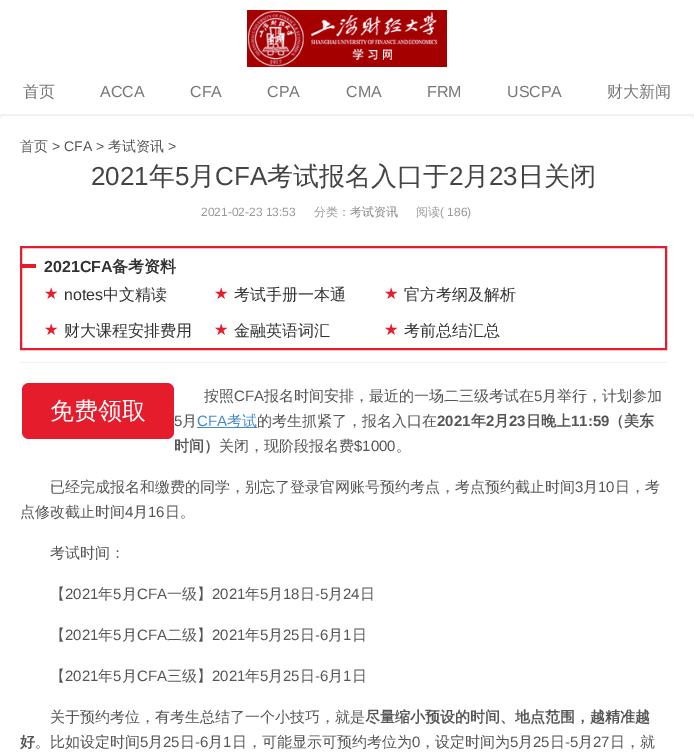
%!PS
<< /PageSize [694 756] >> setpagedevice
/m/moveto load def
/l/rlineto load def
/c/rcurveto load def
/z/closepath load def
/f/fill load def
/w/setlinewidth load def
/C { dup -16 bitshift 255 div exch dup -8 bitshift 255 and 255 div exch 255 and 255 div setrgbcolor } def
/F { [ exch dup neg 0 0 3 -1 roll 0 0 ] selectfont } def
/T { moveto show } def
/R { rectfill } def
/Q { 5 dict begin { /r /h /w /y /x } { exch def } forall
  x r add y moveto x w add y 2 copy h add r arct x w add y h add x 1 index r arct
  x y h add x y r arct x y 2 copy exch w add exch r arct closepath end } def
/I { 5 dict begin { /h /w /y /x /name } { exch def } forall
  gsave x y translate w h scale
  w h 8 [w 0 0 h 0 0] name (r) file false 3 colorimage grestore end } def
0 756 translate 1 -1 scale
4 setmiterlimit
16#F1F1F1 C
0 0 694 756 R
16#FFFFFF C
0 0 694 114 R
(1.rgb) 247 10 200 57 I
/WenQuanYiZenHei-Medium 16 F
16#777777 C
(首页) 23 97 T
/LiberationSans-Regular 16 F
(ACCA) 100 97 T
(CFA) 190 97 T
(CPA) 267 97 T
(CMA) 346 97 T
(FRM) 427 97 T
(USCPA) 507 97 T
/WenQuanYiZenHei-Medium 16 F
(财大新闻) 607 97 T
16#FFFFFF C
0 116 694 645 5 Q f
5 116 m 682 0 l 0 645 l -682 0 l -3 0 -5 -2 -5 -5 c 0 -635 l 0 -3 2 -5 5 -5 c z f
/WenQuanYiZenHei-Medium 14 F
16#555555 C
(首页) 20 151 T
/LiberationSans-Regular 14 F
(> CFA >) 52 151 T
/WenQuanYiZenHei-Medium 14 F
(考试资讯) 108 151 T
/LiberationSans-Regular 14 F
(>) 168 151 T
16#F2F2F2 C
20 362 647 1 R
/LiberationSans-Regular 26 F
16#444444 C
(2021) 91 185 T
/WenQuanYiZenHei-Medium 26 F
(年) 149 185 T
/LiberationSans-Regular 26 F
(5) 175 185 T
/WenQuanYiZenHei-Medium 26 F
(月) 189 185 T
/LiberationSans-Regular 26 F
(CFA) 215 185 T
/WenQuanYiZenHei-Medium 26 F
(考试报名入口于) 267 185 T
/LiberationSans-Regular 26 F
(2) 449 185 T
/WenQuanYiZenHei-Medium 26 F
(月) 463 185 T
/LiberationSans-Regular 26 F
(23) 489 185 T
/WenQuanYiZenHei-Medium 26 F
(日关闭) 518 185 T
/LiberationSans-Regular 12 F
16#999999 C
(2021-02-23 13:53) 201 216 T
/WenQuanYiZenHei-Medium 12 F
(分类：) 314 216 T
16#888888 C
(考试资讯) 350 216 T
16#999999 C
(阅读) 416 216 T
/LiberationSans-Regular 12 F
(\( 186\)) 440 216 T
16#E51C2C C
2 w
21 247 645 102 rectstroke
22 264 14 4 R
/LiberationSans-Bold 16 F
16#333333 C
(2021CFA) 44 272 T
/WenQuanYiZenHei-Bold 16 F
(备考资料) 112 272 T
/DejaVuSans-Regular 16 F
16#E51C2C C
(★) 44 299 T
/LiberationSans-Regular 16 F
16#333333 C
(notes) 64 300 T
/WenQuanYiZenHei-Medium 16 F
(中文精读) 103 300 T
/DejaVuSans-Regular 16 F
16#E51C2C C
(★) 214 299 T
/WenQuanYiZenHei-Medium 16 F
16#333333 C
(考试手册一本通) 234 300 T
/DejaVuSans-Regular 16 F
16#E51C2C C
(★) 384 299 T
/WenQuanYiZenHei-Medium 16 F
16#333333 C
(官方考纲及解析) 404 300 T
/DejaVuSans-Regular 16 F
16#E51C2C C
(★) 44 335 T
/WenQuanYiZenHei-Medium 16 F
16#333333 C
(财大课程安排费用) 64 336 T
/DejaVuSans-Regular 16 F
16#E51C2C C
(★) 214 335 T
/WenQuanYiZenHei-Medium 16 F
16#333333 C
(金融英语词汇) 234 336 T
/DejaVuSans-Regular 16 F
16#E51C2C C
(★) 384 335 T
/WenQuanYiZenHei-Medium 16 F
16#333333 C
(考前总结汇总) 404 336 T
16#E51C2C C
22 383 152 56 7 Q f
/WenQuanYiZenHei-Medium 24 F
16#FFFFFF C
(免费领取) 50 419 T
/WenQuanYiZenHei-Medium 15 F
16#555555 C
(按照) 204 401 T
/LiberationSans-Regular 15 F
(CFA) 234 401 T
/WenQuanYiZenHei-Medium 15 F
(报名时间安排，最近的一场二三级考试在) 264 401 T
/LiberationSans-Regular 15 F
(5) 534 401 T
/WenQuanYiZenHei-Medium 15 F
(月举行，计划参加) 542 401 T
/LiberationSans-Regular 15 F
(5) 174 426 T
/WenQuanYiZenHei-Medium 15 F
(月) 182 426 T
/LiberationSans-Regular 15 F
16#428BCA C
(CFA) 197 426 T
197 427 60 1 R
/WenQuanYiZenHei-Medium 15 F
(考试) 227 426 T
16#555555 C
(的考生抓紧了，报名入口在) 257 426 T
/LiberationSans-Bold 15 F
(2021) 437 426 T
/WenQuanYiZenHei-Bold 15 F
(年) 471 426 T
/LiberationSans-Bold 15 F
(2) 486 426 T
/WenQuanYiZenHei-Bold 15 F
(月) 494 426 T
/LiberationSans-Bold 15 F
(23) 509 426 T
/WenQuanYiZenHei-Bold 15 F
(日晚上) 526 426 T
/LiberationSans-Bold 15 F
(11:59) 571 426 T
/WenQuanYiZenHei-Bold 15 F
(（美东) 609 426 T
(时间）) 174 451 T
/WenQuanYiZenHei-Medium 15 F
(关闭，现阶段报名费) 219 451 T
/LiberationSans-Regular 15 F
($1000) 354 451 T
/WenQuanYiZenHei-Medium 15 F
(。) 396 451 T
(已经完成报名和缴费的同学，别忘了登录官网账号预约考点，考点预约截止时间) 50 492 T
/LiberationSans-Regular 15 F
(3) 575 492 T
/WenQuanYiZenHei-Medium 15 F
(月) 583 492 T
/LiberationSans-Regular 15 F
(10) 598 492 T
/WenQuanYiZenHei-Medium 15 F
(日，考) 615 492 T
(点修改截止时间) 20 517 T
/LiberationSans-Regular 15 F
(4) 125 517 T
/WenQuanYiZenHei-Medium 15 F
(月) 133 517 T
/LiberationSans-Regular 15 F
(16) 148 517 T
/WenQuanYiZenHei-Medium 15 F
(日。) 165 517 T
(考试时间：) 50 558 T
(【) 50 599 T
/LiberationSans-Regular 15 F
(2021) 65 599 T
/WenQuanYiZenHei-Medium 15 F
(年) 98 599 T
/LiberationSans-Regular 15 F
(5) 113 599 T
/WenQuanYiZenHei-Medium 15 F
(月) 122 599 T
/LiberationSans-Regular 15 F
(CFA) 137 599 T
/WenQuanYiZenHei-Medium 15 F
(一级】) 167 599 T
/LiberationSans-Regular 15 F
(2021) 212 599 T
/WenQuanYiZenHei-Medium 15 F
(年) 245 599 T
/LiberationSans-Regular 15 F
(5) 260 599 T
/WenQuanYiZenHei-Medium 15 F
(月) 268 599 T
/LiberationSans-Regular 15 F
(18) 283 599 T
/WenQuanYiZenHei-Medium 15 F
(日) 300 599 T
/LiberationSans-Regular 15 F
(-5) 315 599 T
/WenQuanYiZenHei-Medium 15 F
(月) 328 599 T
/LiberationSans-Regular 15 F
(24) 343 599 T
/WenQuanYiZenHei-Medium 15 F
(日) 360 599 T
(【) 50 640 T
/LiberationSans-Regular 15 F
(2021) 65 640 T
/WenQuanYiZenHei-Medium 15 F
(年) 98 640 T
/LiberationSans-Regular 15 F
(5) 113 640 T
/WenQuanYiZenHei-Medium 15 F
(月) 122 640 T
/LiberationSans-Regular 15 F
(CFA) 137 640 T
/WenQuanYiZenHei-Medium 15 F
(二级】) 167 640 T
/LiberationSans-Regular 15 F
(2021) 212 640 T
/WenQuanYiZenHei-Medium 15 F
(年) 245 640 T
/LiberationSans-Regular 15 F
(5) 260 640 T
/WenQuanYiZenHei-Medium 15 F
(月) 268 640 T
/LiberationSans-Regular 15 F
(25) 283 640 T
/WenQuanYiZenHei-Medium 15 F
(日) 300 640 T
/LiberationSans-Regular 15 F
(-6) 315 640 T
/WenQuanYiZenHei-Medium 15 F
(月) 328 640 T
/LiberationSans-Regular 15 F
(1) 343 640 T
/WenQuanYiZenHei-Medium 15 F
(日) 352 640 T
(【) 50 681 T
/LiberationSans-Regular 15 F
(2021) 65 681 T
/WenQuanYiZenHei-Medium 15 F
(年) 98 681 T
/LiberationSans-Regular 15 F
(5) 113 681 T
/WenQuanYiZenHei-Medium 15 F
(月) 122 681 T
/LiberationSans-Regular 15 F
(CFA) 137 681 T
/WenQuanYiZenHei-Medium 15 F
(三级】) 167 681 T
/LiberationSans-Regular 15 F
(2021) 212 681 T
/WenQuanYiZenHei-Medium 15 F
(年) 245 681 T
/LiberationSans-Regular 15 F
(5) 260 681 T
/WenQuanYiZenHei-Medium 15 F
(月) 268 681 T
/LiberationSans-Regular 15 F
(25) 283 681 T
/WenQuanYiZenHei-Medium 15 F
(日) 300 681 T
/LiberationSans-Regular 15 F
(-6) 315 681 T
/WenQuanYiZenHei-Medium 15 F
(月) 328 681 T
/LiberationSans-Regular 15 F
(1) 343 681 T
/WenQuanYiZenHei-Medium 15 F
(日) 352 681 T
(关于预约考位，有考生总结了一个小技巧，就是) 50 722 T
/WenQuanYiZenHei-Bold 15 F
(尽量缩小预设的时间、地点范围，越精准越) 365 722 T
(好) 20 747 T
/WenQuanYiZenHei-Medium 15 F
(。比如设定时间) 35 747 T
/LiberationSans-Regular 15 F
(5) 140 747 T
/WenQuanYiZenHei-Medium 15 F
(月) 148 747 T
/LiberationSans-Regular 15 F
(25) 163 747 T
/WenQuanYiZenHei-Medium 15 F
(日) 180 747 T
/LiberationSans-Regular 15 F
(-6) 195 747 T
/WenQuanYiZenHei-Medium 15 F
(月) 208 747 T
/LiberationSans-Regular 15 F
(1) 223 747 T
/WenQuanYiZenHei-Medium 15 F
(日，可能显示可预约考位为) 232 747 T
/LiberationSans-Regular 15 F
(0) 412 747 T
/WenQuanYiZenHei-Medium 15 F
(，设定时间为) 420 747 T
/LiberationSans-Regular 15 F
(5) 510 747 T
/WenQuanYiZenHei-Medium 15 F
(月) 518 747 T
/LiberationSans-Regular 15 F
(25) 533 747 T
/WenQuanYiZenHei-Medium 15 F
(日) 550 747 T
/LiberationSans-Regular 15 F
(-5) 565 747 T
/WenQuanYiZenHei-Medium 15 F
(月) 578 747 T
/LiberationSans-Regular 15 F
(27) 593 747 T
/WenQuanYiZenHei-Medium 15 F
(日，就) 610 747 T
showpage
